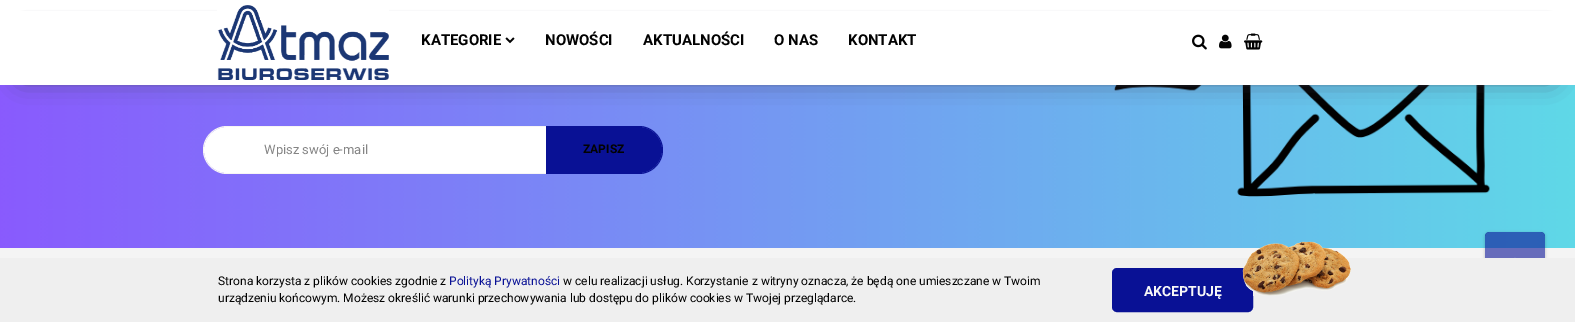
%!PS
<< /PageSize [1575 322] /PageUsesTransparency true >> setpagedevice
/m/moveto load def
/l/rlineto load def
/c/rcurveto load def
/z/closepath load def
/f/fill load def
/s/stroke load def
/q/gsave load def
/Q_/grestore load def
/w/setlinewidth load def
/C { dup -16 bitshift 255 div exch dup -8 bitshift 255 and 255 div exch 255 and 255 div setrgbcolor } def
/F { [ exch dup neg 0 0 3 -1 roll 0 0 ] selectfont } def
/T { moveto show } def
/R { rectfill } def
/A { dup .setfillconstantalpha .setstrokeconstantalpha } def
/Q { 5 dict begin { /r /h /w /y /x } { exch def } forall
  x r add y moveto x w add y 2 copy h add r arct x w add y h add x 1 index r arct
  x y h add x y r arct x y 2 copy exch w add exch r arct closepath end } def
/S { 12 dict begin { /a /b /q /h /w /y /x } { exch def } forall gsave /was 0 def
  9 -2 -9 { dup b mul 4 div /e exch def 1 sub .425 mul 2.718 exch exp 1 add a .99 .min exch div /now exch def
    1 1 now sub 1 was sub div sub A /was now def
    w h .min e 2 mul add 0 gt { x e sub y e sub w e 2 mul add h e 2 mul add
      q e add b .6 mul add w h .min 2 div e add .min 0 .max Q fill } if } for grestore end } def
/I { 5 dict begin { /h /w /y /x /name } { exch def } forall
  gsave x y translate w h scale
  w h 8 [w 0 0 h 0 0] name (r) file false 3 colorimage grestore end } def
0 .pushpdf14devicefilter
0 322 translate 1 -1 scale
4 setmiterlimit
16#FFFFFF C
0 0 1575 322 R
(6.rgb) 0 85 1575 163 I
16#42445A C
22 38 1529 39 0 12.5 1 S
16#FFFFFF C
0 11 1575 74 R
(1.rgb) 217 5 172 75 I
/Roboto-Bold 15 F
16#020202 C
(KATEGORIE) 421 45 T
(2.rgb) 505 37 10 7 I
(NOWOŚCI) 545 45 T
(AKTUALNOŚCI) 643 45 T
(O NAS) 774 45 T
(KONTAKT) 848 45 T
(3.rgb) 1192 34 15 16 I
(4.rgb) 1219 34 13 15 I
(5.rgb) 1244 33 19 17 I
16#FFFFFF C
227 127 m 319 0 l 0 46 l -319 0 l -12.5 0 -23 -10.5 -23 -23 c 0 -12.5 10.5 -23 23 -23 c z f
16#F7F5F5 C
227 126 m 319 0 l 0 48 l -319 0 l -13 0 -24 -11 -24 -24 c 0 -13 11 -24 24 -24 c z 227 127 m 319 0 l 0 46 l -319 0 l -13 0 -23 -10 -23 -23 c 0 -13 10 -23 23 -23 c z eofill
/Roboto-Regular 13 F
16#858585 C
(Wpisz swój e-mail) 264 154 T
16#091195 C
546 127 m 93 0 l 12.5 0 23 10.5 23 23 c 0 12.5 -10.5 23 -23 23 c -93 0 l z f
546 126 m 93 0 l 13 0 24 11 24 24 c 0 13 -11 24 -24 24 c -93 0 l z 546 127 m 93 0 l 13 0 23 10 23 23 c 0 13 -10 23 -23 23 c -93 0 l z eofill
/Roboto-Bold 12 F
16#020202 C
(ZAPISZ) 583 153 T
16#F4F4F4 C
0 248 1575 10 R
q
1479 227 m 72 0 l 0 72 l -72 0 l z 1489 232 m 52 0 l 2 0 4 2 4 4 c 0 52 l 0 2 -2 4 -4 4 c -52 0 l -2 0 -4 -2 -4 -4 c 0 -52 l 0 -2 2 -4 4 -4 c z eoclip newpath
16#000000 C
1485 233 60 60 4 1.5 .2 S
Q_
0.6 A
16#091195 C
1485 232 60 60 4 Q f
1 A
16#EFEFEF C
0 258 1575 64 R
/Roboto-Regular 12 F
16#020202 C
(Strona korzysta z plików cookies zgodnie z) 218 285 T
16#091195 C
(Polityką Prywatności) 449 285 T
16#020202 C
(w celu realizacji usług. Korzystanie z witryny oznacza, że będą one umieszczane w Twoim) 563 285 T
(urządzeniu końcowym. Możesz określić warunki przechowywania lub dostępu do plików cookies w Twojej przeglądarce.) 218 302 T
16#091195 C
1113 269 139 42 4 Q q f Q_
2 w
s
/Roboto-Bold 14 F
16#F7F7F7 C
(AKCEPTUJĘ) 1144 296 T
(7.rgb) 1242 241 109 55 I
(8.rgb) 1514 257 2 1 I
.poppdf14devicefilter showpage
